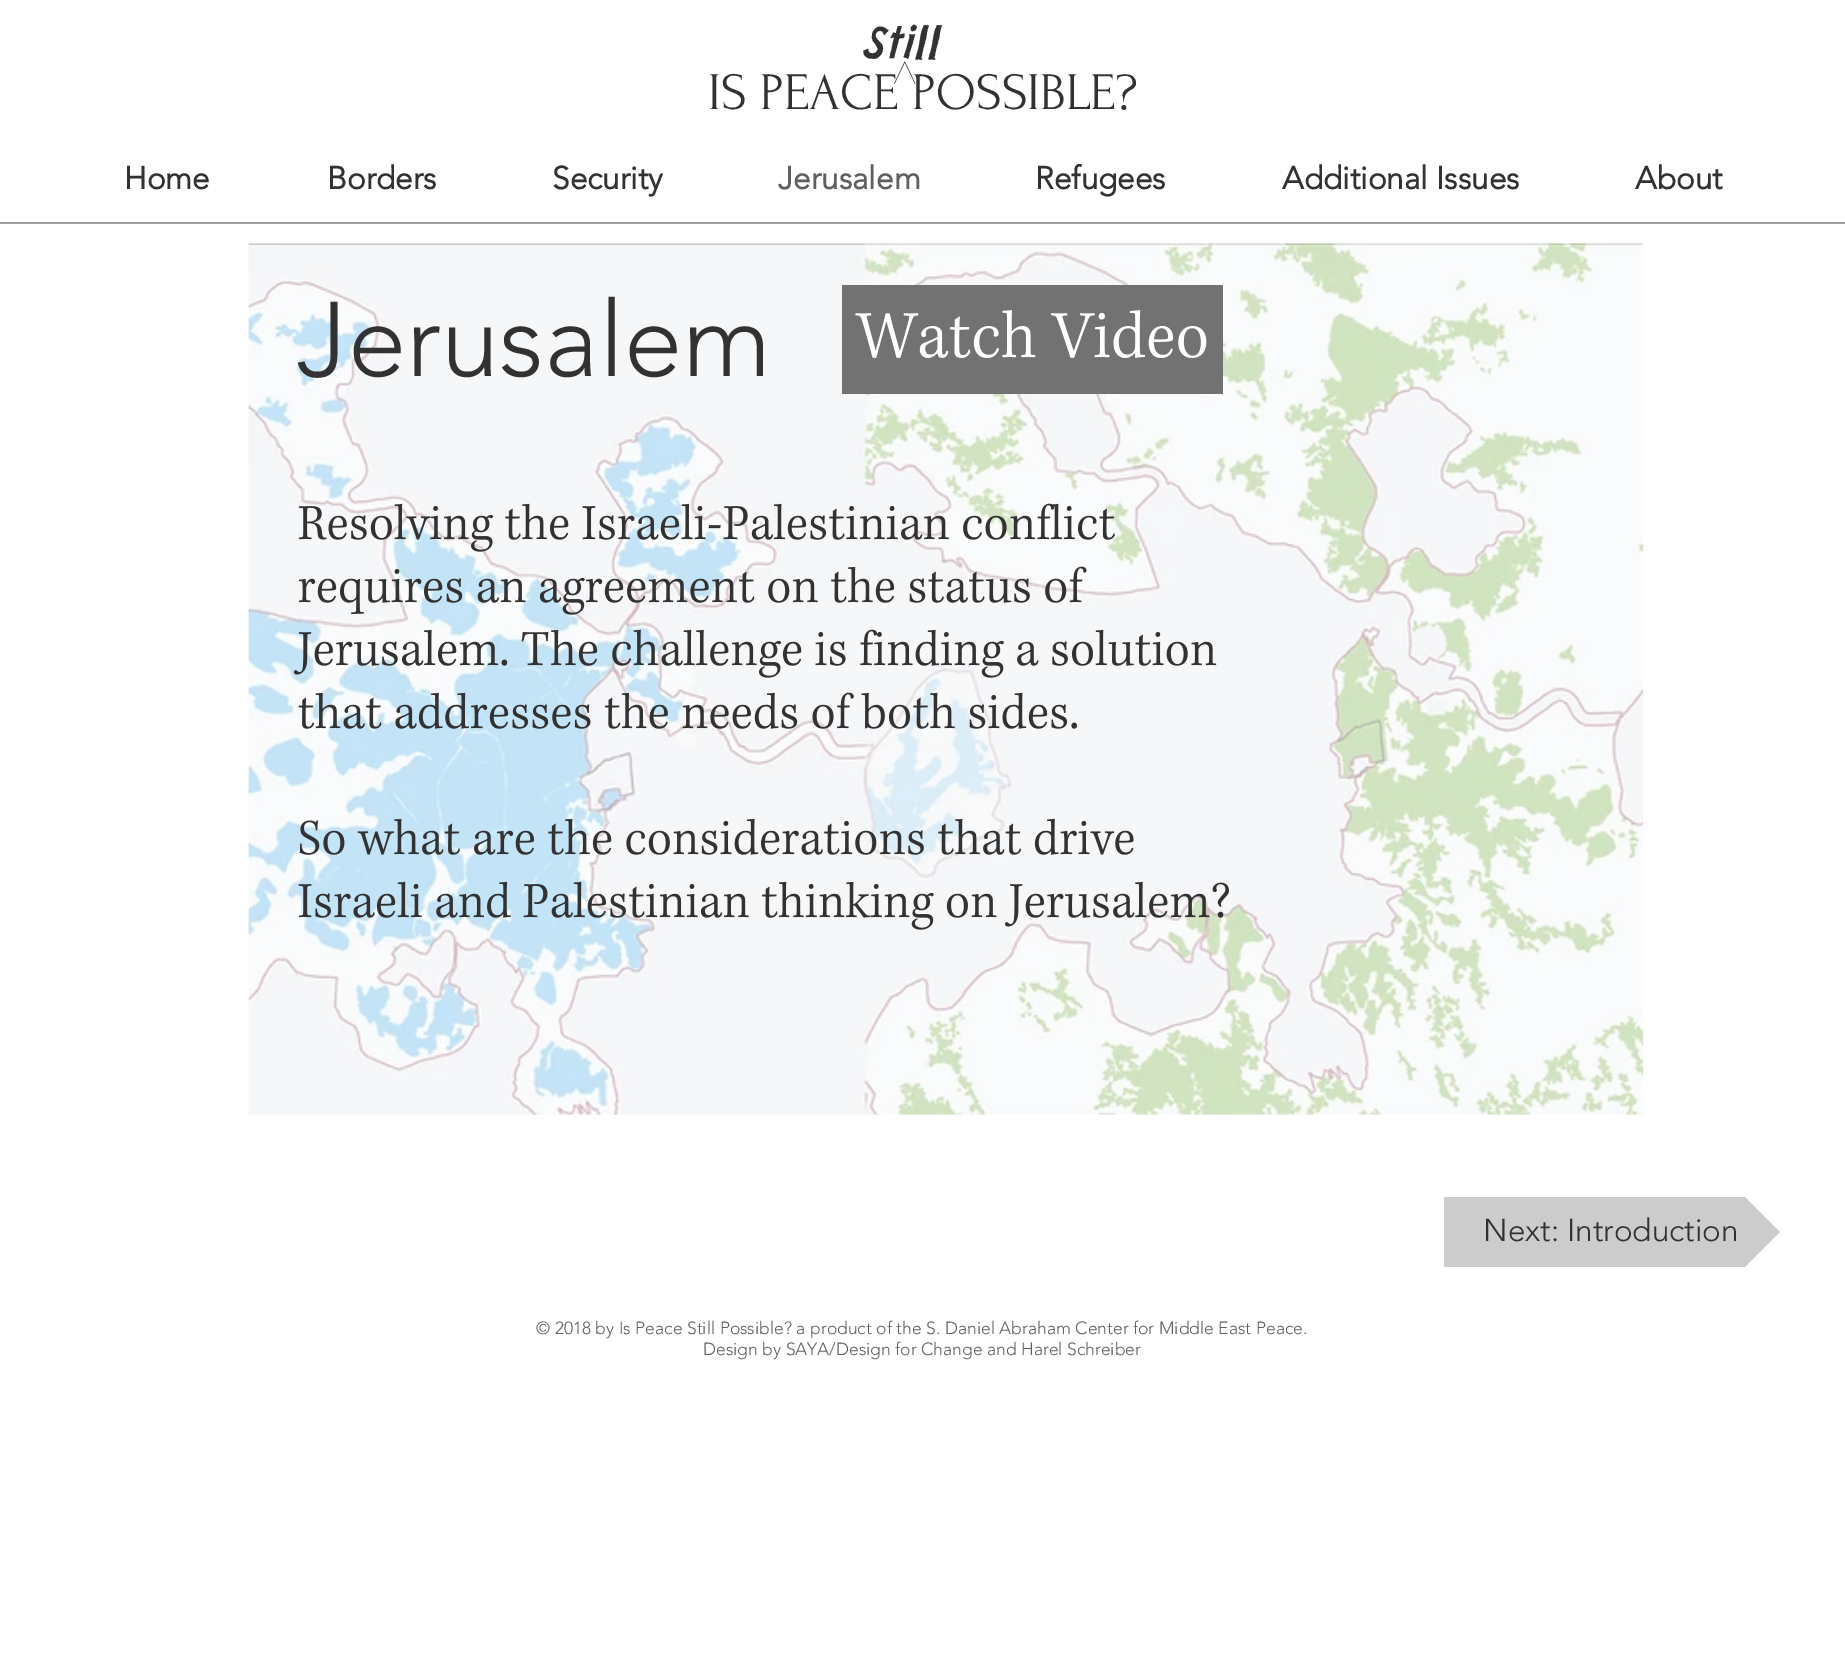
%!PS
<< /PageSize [1845 1656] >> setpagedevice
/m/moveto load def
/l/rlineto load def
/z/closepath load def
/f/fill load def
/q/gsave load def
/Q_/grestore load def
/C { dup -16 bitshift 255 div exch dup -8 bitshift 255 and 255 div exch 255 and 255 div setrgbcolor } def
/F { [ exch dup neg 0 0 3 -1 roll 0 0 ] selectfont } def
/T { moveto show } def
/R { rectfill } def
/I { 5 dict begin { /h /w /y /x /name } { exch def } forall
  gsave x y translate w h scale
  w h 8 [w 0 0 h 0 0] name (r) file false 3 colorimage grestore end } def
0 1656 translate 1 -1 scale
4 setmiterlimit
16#FFFFFF C
0 0 1845 1656 R
/ChelseaMarket-Italic 44 F
16#323232 C
(Still) 861 58 T
/Forum-Regular 52.5 F
(IS PEACE POSSIBLE?) 708 109 T
(1.rgb) 894 61 22 23 I
/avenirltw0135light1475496-Bold 31.5 F
(Home) 124 189 T
(Borders) 327 189 T
(Security) 552 189 T
16#605E5E C
(Jerusalem) 778 189 T
16#323232 C
(Refugees) 1035 189 T
(Additional Issues) 1282 189 T
(About) 1635 189 T
16#A0A09F C
0 222 1845 2 R
(2.rgb) 248 243 1396 872 I
/avenirltw0135light1475496-Light 105 F
16#323232 C
(Jerusalem) 297 376 T
16#727272 C
842 285 381 109 R
(3.rgb) 855 310 352 48 I
(4.rgb) 298 503 817 49 I
(5.rgb) 298 566 789 49 I
(6.rgb) 293 629 924 49 I
(7.rgb) 298 692 780 37 I
(8.rgb) 299 818 835 37 I
(9.rgb) 298 881 931 49 I
16#CCCCCC C
1444 1197 248 70 R
q
1444 1197 336 70 rectclip
1780 1232 m -88 0 l 0 -88 l z f
1692 1232 m 88 0 l -88 88 l z f
Q_
/avenirltw0135light1475496-Light 31.5 F
16#323232 C
(Next: Introduction) 1483 1241 T
/avenirltw0135light1475496-Light 17.5 F
16#605E5E C
(© 2018 by Is Peace Still Possible? a product of the S. Daniel Abraham Center for Middle East Peace.) 536 1334 T
(Design by SAYA/Design for Change and Harel Schreiber) 703 1355 T
showpage
